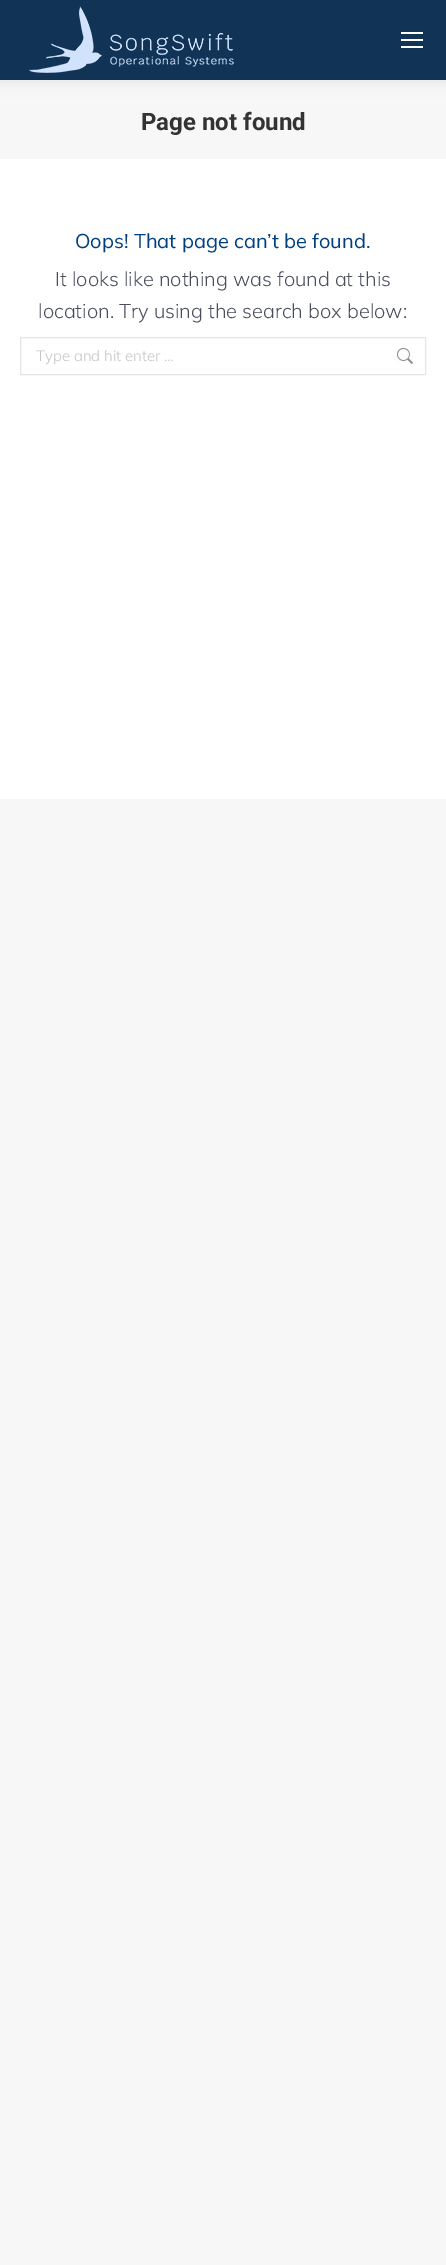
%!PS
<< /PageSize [446 2265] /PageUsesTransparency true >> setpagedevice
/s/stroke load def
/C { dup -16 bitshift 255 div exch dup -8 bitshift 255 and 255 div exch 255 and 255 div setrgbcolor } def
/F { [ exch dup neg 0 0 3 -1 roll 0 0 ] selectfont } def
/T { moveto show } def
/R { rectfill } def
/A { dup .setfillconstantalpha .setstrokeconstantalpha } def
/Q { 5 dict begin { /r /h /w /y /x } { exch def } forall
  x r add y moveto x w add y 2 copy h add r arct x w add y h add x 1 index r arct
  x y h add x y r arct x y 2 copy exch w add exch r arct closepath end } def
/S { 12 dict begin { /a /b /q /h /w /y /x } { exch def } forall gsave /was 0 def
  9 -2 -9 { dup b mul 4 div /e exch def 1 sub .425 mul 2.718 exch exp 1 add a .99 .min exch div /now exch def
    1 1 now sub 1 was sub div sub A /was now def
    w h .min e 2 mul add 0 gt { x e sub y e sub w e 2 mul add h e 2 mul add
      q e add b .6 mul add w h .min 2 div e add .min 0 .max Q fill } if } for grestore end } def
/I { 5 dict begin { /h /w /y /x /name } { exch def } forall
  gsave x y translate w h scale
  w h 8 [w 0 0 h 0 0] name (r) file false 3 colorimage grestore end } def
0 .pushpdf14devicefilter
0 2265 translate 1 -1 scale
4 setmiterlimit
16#F7F7F7 C
0 0 446 2265 R
16#000000 C
-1 -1 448 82 0 7.5 .07 S
16#103356 C
0 0 446 80 R
(1.rgb) 29 6 205 67 I
16#FFFFFF C
401 32 22 2 R
401 39 22 2 R
401 46 22 2 R
0 159 446 640 R
/Roboto-Bold 24 F
16#333333 C
(Page not found) 141 130 T
/Mulish-Regular 20 F
16#00407F C
(Oops! That page can’t be found.) 75 248 T
/Mulish-Light 20 F
16#4A4D5B C
(It looks like nothing was found at this) 55 286 T
(location. Try using the search box below:) 38 318 T
16#E5E5E5 C
20.5 337.5 405 37 .5 Q s
/Mulish-Light 15 F
16#C4C5C9 C
(Type and hit enter …) 36 361 T
(2.rgb) 397 348 16 16 I
.poppdf14devicefilter showpage
